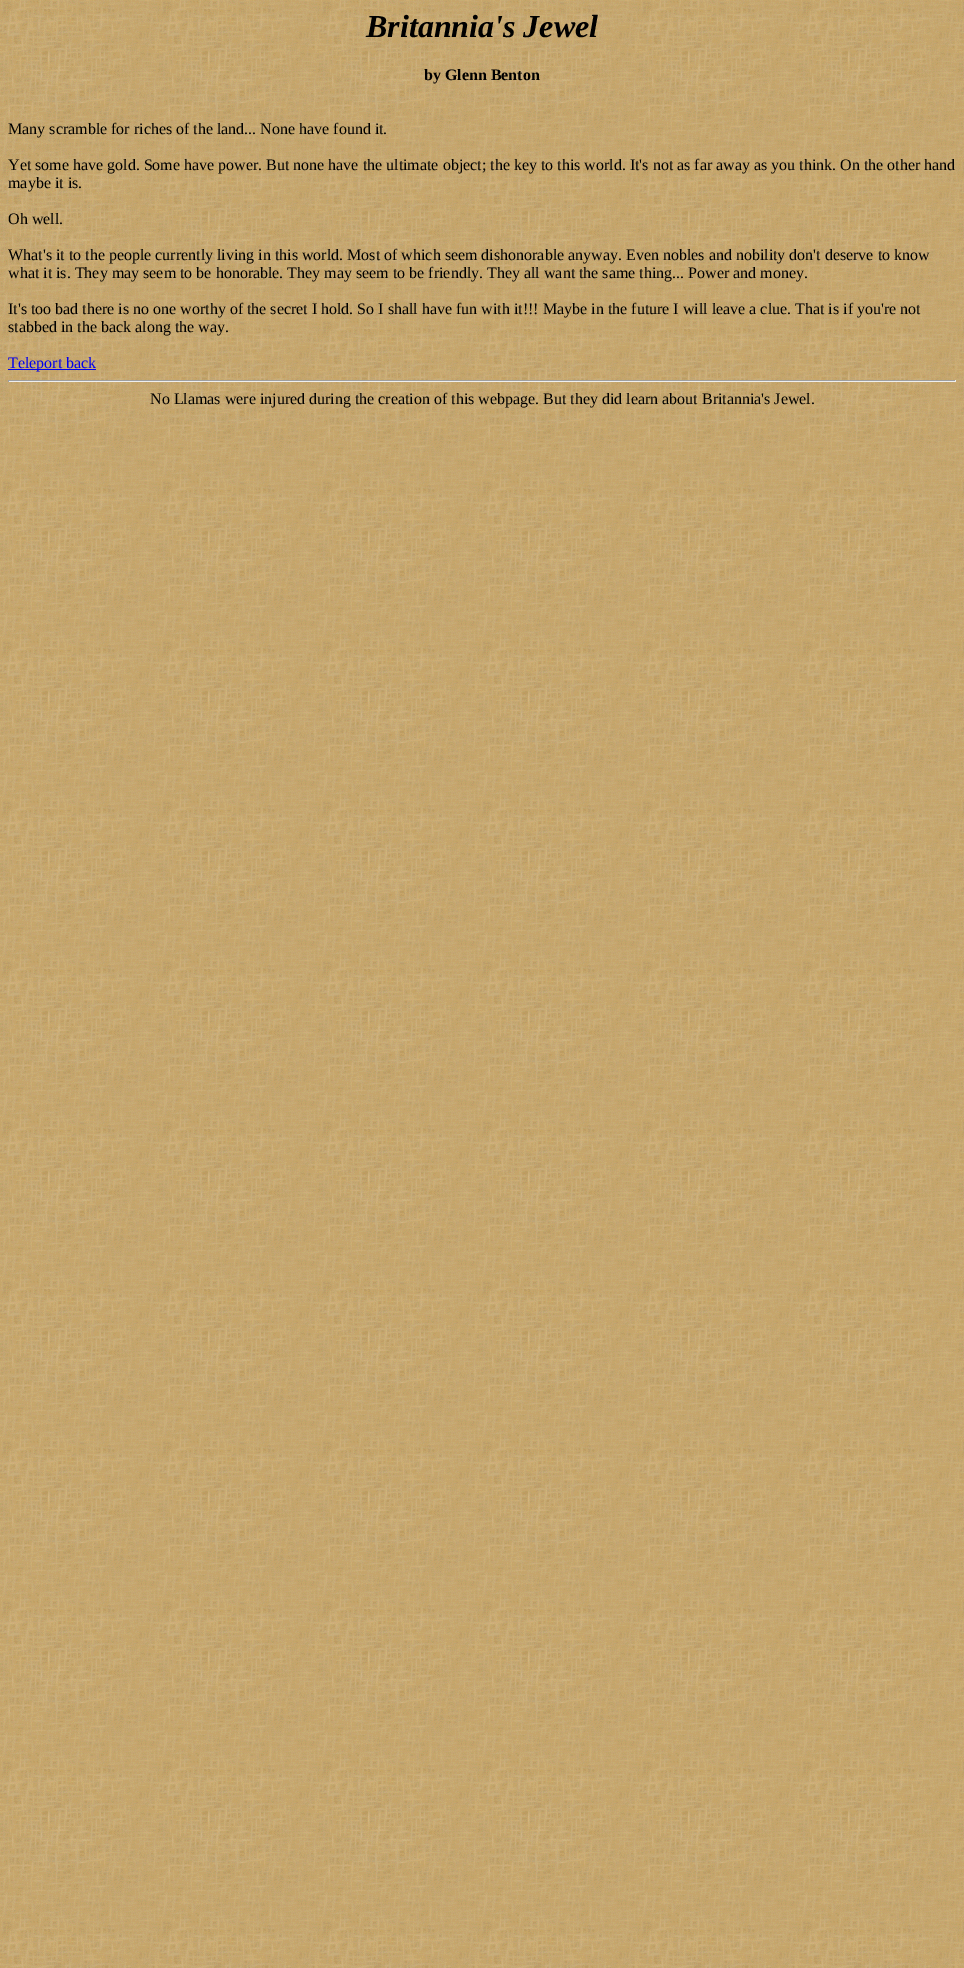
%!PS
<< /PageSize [964 1968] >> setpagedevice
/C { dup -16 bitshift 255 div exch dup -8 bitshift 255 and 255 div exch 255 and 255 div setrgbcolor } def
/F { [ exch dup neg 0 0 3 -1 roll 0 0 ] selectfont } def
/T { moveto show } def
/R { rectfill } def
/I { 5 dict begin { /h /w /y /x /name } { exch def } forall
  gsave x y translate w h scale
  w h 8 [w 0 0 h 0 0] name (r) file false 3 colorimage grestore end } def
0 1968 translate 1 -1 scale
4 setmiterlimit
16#FFFFFF C
0 0 964 1968 R
(1.rgb) 0 0 964 1968 I
/LiberationSerif-BoldItalic 32 F
16#000000 C
(Britannia's Jewel) 366 37 T
/LiberationSerif-Bold 16 F
(by Glenn Benton) 424 80 T
/LiberationSerif-Regular 16 F
(Many scramble for riches of the land... None have found it.) 8 134 T
(Yet some have gold. Some have power. But none have the ultimate object; the key to this world. It's not as far away as you think. On the other hand) 8 170 T
(maybe it is.) 8 188 T
(Oh well.) 8 224 T
(What's it to the people currently living in this world. Most of which seem dishonorable anyway. Even nobles and nobility don't deserve to know) 8 260 T
(what it is. They may seem to be honorable. They may seem to be friendly. They all want the same thing... Power and money.) 8 278 T
(It's too bad there is no one worthy of the secret I hold. So I shall have fun with it!!! Maybe in the future I will leave a clue. That is if you're not) 8 314 T
(stabbed in the back along the way.) 8 332 T
16#0000EE C
8 369 88 1 R
(Teleport back) 8 368 T
16#9F9F9F C
8 380 948 1 R
16#EEEEEE C
955 380 1 2 R
8 381 948 1 R
16#9F9F9F C
8 380 1 2 R
16#000000 C
(No Llamas were injured during the creation of this webpage. But they did learn about Britannia's Jewel.) 150 404 T
showpage
